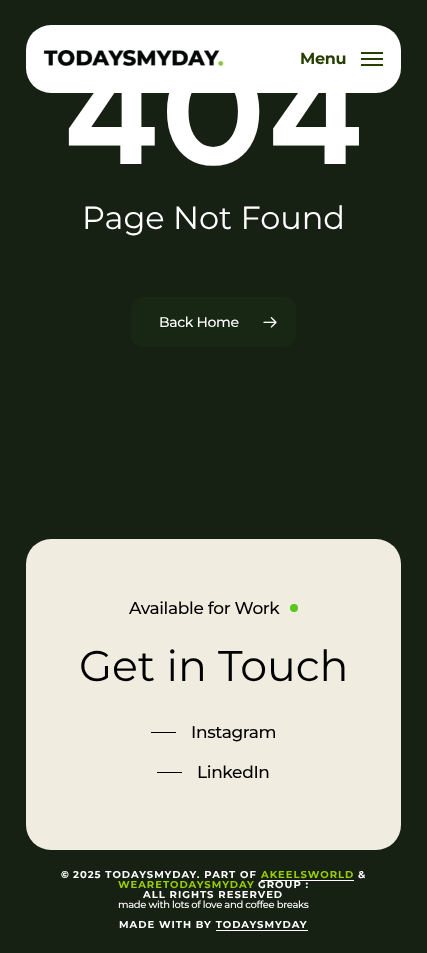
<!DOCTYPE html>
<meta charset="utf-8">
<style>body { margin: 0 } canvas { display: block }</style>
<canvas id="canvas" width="427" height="953"></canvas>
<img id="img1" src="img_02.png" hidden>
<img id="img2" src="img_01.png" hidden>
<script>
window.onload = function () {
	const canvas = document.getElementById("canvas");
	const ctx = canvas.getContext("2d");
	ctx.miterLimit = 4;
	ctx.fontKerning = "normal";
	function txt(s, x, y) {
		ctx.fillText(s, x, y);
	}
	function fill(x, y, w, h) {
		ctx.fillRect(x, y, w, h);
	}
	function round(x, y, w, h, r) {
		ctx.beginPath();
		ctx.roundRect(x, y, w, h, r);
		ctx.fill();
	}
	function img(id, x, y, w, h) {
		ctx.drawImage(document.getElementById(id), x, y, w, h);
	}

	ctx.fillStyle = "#162114";
	fill(0, 0, 427, 953);
	ctx.fillStyle = "#FFFFFF";
	round(26, 25, 375, 68, 25);
	ctx.fillStyle = "#273F01";
	fill(361, 52, 22, 2);
	fill(361, 64, 22, 2);
	fill(361, 58, 22, 2);
	ctx.fillStyle = "#172713";
	round(131, 297, 165, 50, 12);
	img("img1", 263, 317, 14, 11);
	ctx.fillStyle = "#F1ECE0";
	round(26, 539, 375, 311, 25);
	ctx.fillStyle = "#55C91C";
	ctx.beginPath();
	ctx.arc(294, 608, 4, 0, Math.PI * 2);
	ctx.fill();
	ctx.fillStyle = "#000000";
	fill(151, 732, 25, 1);
	fill(157, 772, 25, 1);
	ctx.fillStyle = "#FFFFFF";
	fill(261, 880, 93, 1);
	fill(216, 930, 92, 1);
	ctx.font = "800 150px DM Sans";
	txt("404", 62, 164);
	ctx.letterSpacing = "-0.35px";
	ctx.font = "bold 16px Montserrat";
	ctx.fillStyle = "#273F01";
	txt("Menu", 300, 64);
	img("img2", 43, 50, 181, 16);
	ctx.letterSpacing = "0px";
	ctx.font = "32px Montserrat";
	ctx.fillStyle = "#FFFFFF";
	txt("Page Not Found", 82, 229);
	ctx.letterSpacing = "-0.35px";
	ctx.font = "500 14px Montserrat";
	txt("Back Home", 159, 327);
	ctx.font = "500 17px Montserrat";
	ctx.fillStyle = "#000000";
	txt("Available for Work", 129, 614);
	ctx.letterSpacing = "0px";
	ctx.font = "42.75px Montserrat";
	txt("Get in Touch", 79, 681);
	ctx.letterSpacing = "-0.35px";
	ctx.font = "500 17px Montserrat";
	txt("Instagram", 191, 738);
	txt("LinkedIn", 197, 778);
	ctx.letterSpacing = "1px";
	ctx.font = "800 10px Montserrat";
	ctx.fillStyle = "#FFFFFF";
	txt("©", 61, 878);
	ctx.font = "bold 10px Montserrat";
	txt("2025 TODAYSMYDAY. PART OF", 73, 878);
	ctx.fillStyle = "#99CC00";
	txt("AKEELSWORLD", 261, 878);
	ctx.fillStyle = "#FFFFFF";
	txt("&", 358, 878);
	ctx.fillStyle = "#99CC00";
	txt("WEARETODAYSMYDAY", 118, 888);
	ctx.fillStyle = "#FFFFFF";
	txt("GROUP :", 258, 888);
	txt("ALL RIGHTS RESERVED", 143, 898);
	ctx.letterSpacing = "-0.35px";
	ctx.font = "500 10px Montserrat";
	txt("made with lots of love and coffee breaks", 118, 908);
	ctx.letterSpacing = "1px";
	ctx.font = "bold 10px Montserrat";
	txt("MADE WITH BY TODAYSMYDAY", 119, 928);
};
</script>
